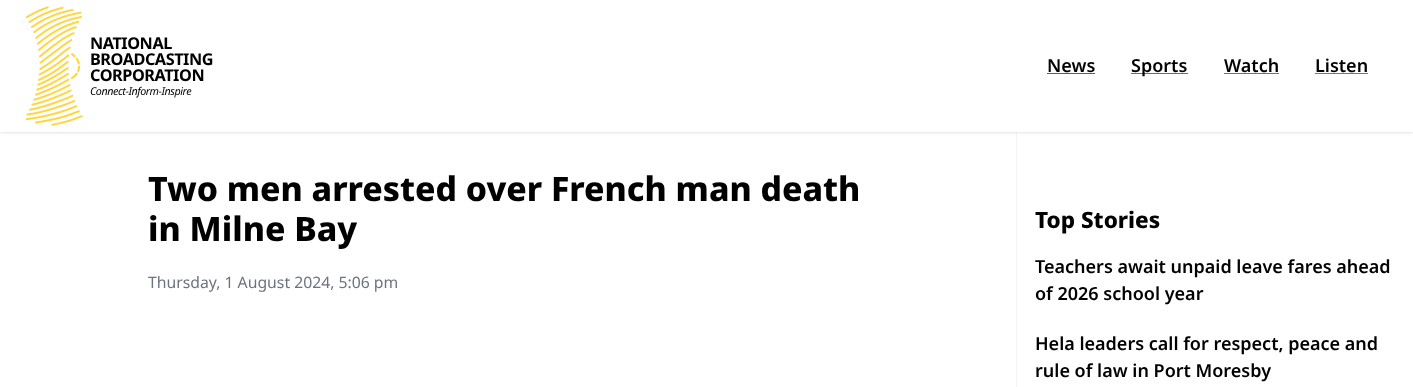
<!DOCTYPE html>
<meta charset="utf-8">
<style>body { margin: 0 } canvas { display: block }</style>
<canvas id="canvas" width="1413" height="387"></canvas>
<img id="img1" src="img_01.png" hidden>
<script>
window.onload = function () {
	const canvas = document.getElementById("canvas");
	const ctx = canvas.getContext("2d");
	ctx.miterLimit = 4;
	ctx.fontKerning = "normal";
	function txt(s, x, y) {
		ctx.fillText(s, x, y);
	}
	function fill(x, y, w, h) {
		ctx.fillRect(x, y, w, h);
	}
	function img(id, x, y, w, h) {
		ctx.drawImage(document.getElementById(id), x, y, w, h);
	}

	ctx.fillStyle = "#FFFFFF";
	fill(0, 0, 1413, 387);
	ctx.fillStyle = "#F4F5F6";
	fill(1016, 132, 1, 255);
	ctx.fillStyle = "rgba(209, 213, 219, 0.5)";
	ctx.filter = "blur(1px)";
	ctx.beginPath();
	ctx.rect(1, 2, 1411, 130);
	ctx.fill();
	ctx.filter = "none";
	ctx.filter = "blur(1.5px)";
	ctx.beginPath();
	ctx.rect(0, 1, 1413, 132);
	ctx.fill();
	ctx.filter = "none";
	ctx.fillStyle = "#FFFFFF";
	fill(0, 0, 1413, 132);
	img("img1", 25, 6, 58, 120);
	ctx.fillStyle = "#E12133";
	fill(1047, 73, 48, 1);
	ctx.fillStyle = "#1D9C42";
	fill(1131, 73, 57, 1);
	ctx.fillStyle = "#A740DD";
	fill(1224, 73, 55, 1);
	ctx.fillStyle = "#CE5B11";
	fill(1315, 73, 53, 1);
	ctx.letterSpacing = "-0.45px";
	ctx.font = "bold 16.25px Noto Sans";
	ctx.fillStyle = "#000000";
	txt("NATIONAL", 90, 49);
	txt("BROADCASTING", 90, 65);
	txt("CORPORATION", 90, 81);
	ctx.font = "italic 10.75px Noto Sans";
	txt("Connect-Inform-Inspire", 90, 95);
	ctx.letterSpacing = "0px";
	ctx.font = "600 18px Noto Sans";
	txt("News", 1047, 72);
	txt("Sports", 1131, 72);
	txt("Watch", 1224, 72);
	txt("Listen", 1315, 72);
	ctx.font = "800 33.75px Noto Sans";
	txt("Two men arrested over French man death", 148, 201);
	txt("in Milne Bay", 148, 241);
	ctx.font = "15.75px Noto Sans";
	ctx.fillStyle = "#6B7280";
	txt("Thursday, 1 August 2024, 5:06 pm", 148, 288);
	ctx.font = "800 22.5px Noto Sans";
	ctx.fillStyle = "#000000";
	txt("Top Stories", 1035, 228);
	ctx.font = "600 18px Noto Sans";
	txt("Teachers await unpaid leave fares ahead", 1035, 273);
	txt("of 2026 school year", 1035, 300);
	txt("Hela leaders call for respect, peace and", 1035, 350);
	txt("rule of law in Port Moresby", 1035, 377);
};
</script>
